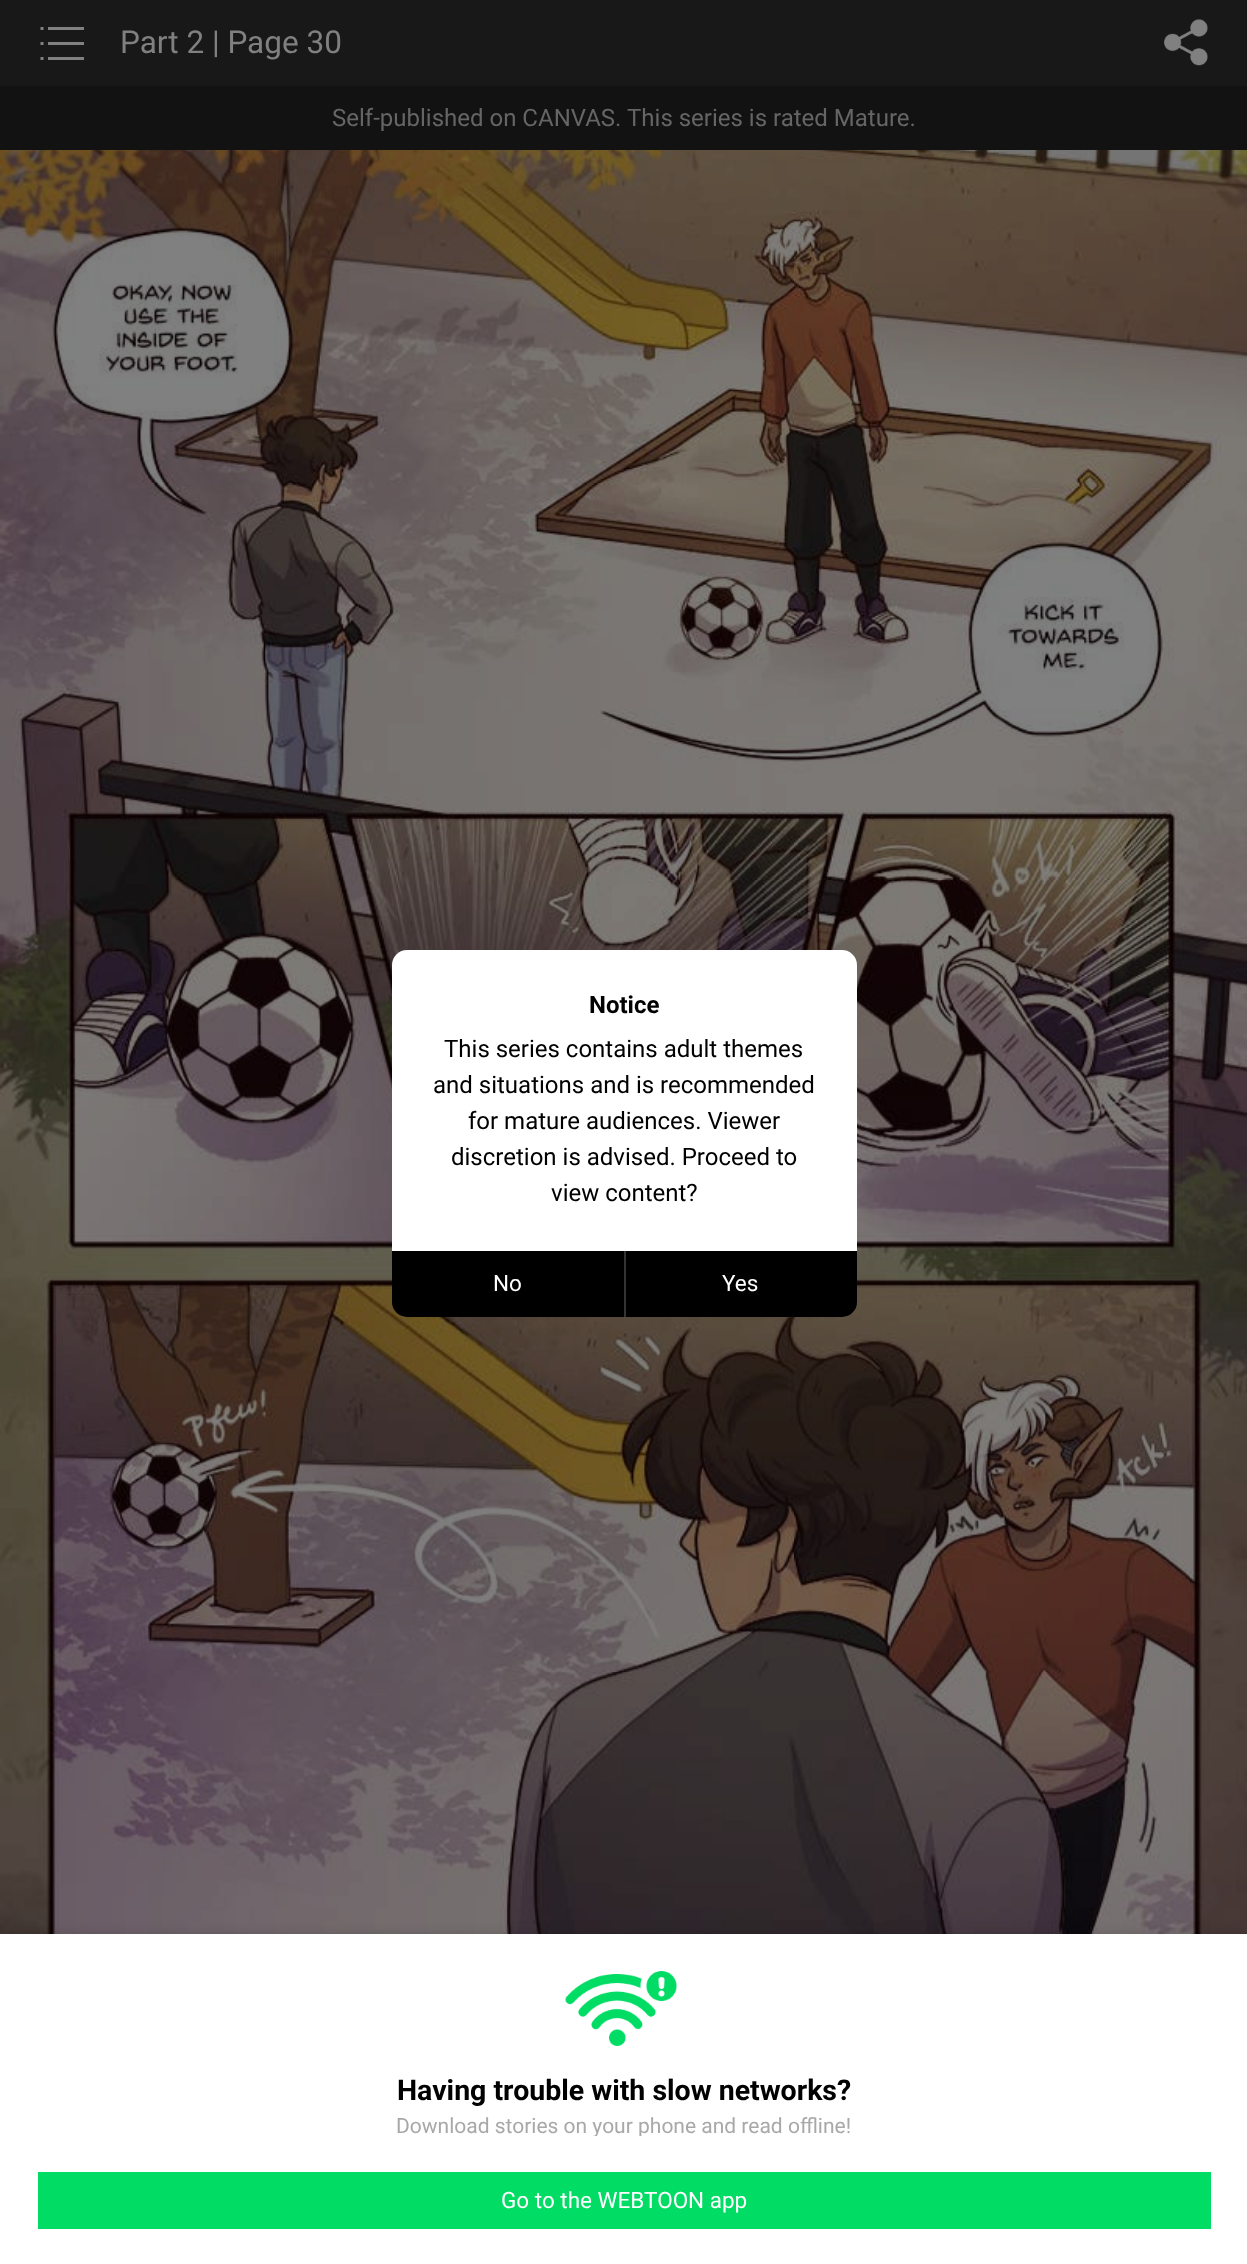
<!DOCTYPE html>
<meta charset="utf-8">
<style>body { margin: 0 } canvas { display: block }</style>
<canvas id="canvas" width="1247" height="2264"></canvas>
<img id="img1" src="img_01.png" hidden>
<img id="img2" src="img_02.png" hidden>
<img id="img3" src="img_03.png" hidden>
<img id="img4" src="img_04.png" hidden>
<script>
window.onload = function () {
	const canvas = document.getElementById("canvas");
	const ctx = canvas.getContext("2d");
	ctx.miterLimit = 4;
	ctx.fontKerning = "normal";
	function txt(s, x, y) {
		ctx.fillText(s, x, y);
	}
	function fill(x, y, w, h) {
		ctx.fillRect(x, y, w, h);
	}
	function img(id, x, y, w, h) {
		ctx.drawImage(document.getElementById(id), x, y, w, h);
	}

	ctx.fillStyle = "#FFFFFF";
	fill(0, 0, 1247, 2264);
	ctx.fillStyle = "#181818";
	fill(0, 0, 1247, 86);
	img("img1", 40, 27, 44, 33);
	img("img2", 1164, 19, 44, 47);
	ctx.fillStyle = "#121212";
	fill(0, 86, 1247, 64);
	img("img3", 0, 150, 1247, 1784);
	ctx.fillStyle = "#FFFFFF";
	ctx.beginPath();
	ctx.roundRect(392, 950, 465, 301, [15, 15, 0, 0]);
	ctx.fill();
	ctx.fillStyle = "#000000";
	ctx.beginPath();
	ctx.roundRect(392, 1251, 465, 66, [0, 0, 15, 15]);
	ctx.fill();
	ctx.fillStyle = "#333333";
	fill(624, 1251, 2, 66);
	ctx.fillStyle = "rgba(0, 0, 0, 0.2)";
	ctx.filter = "blur(7.5px)";
	ctx.beginPath();
	ctx.rect(0, 1937, 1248, 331);
	ctx.fill();
	ctx.filter = "none";
	ctx.fillStyle = "#FFFFFF";
	fill(0, 1934, 1247, 330);
	img("img4", 565, 1971, 112, 75);
	ctx.fillStyle = "#00DC64";
	fill(38, 2172, 1173, 57);
	ctx.font = "31.5px Roboto";
	ctx.fillStyle = "#808080";
	txt("Part 2 | Page 30", 120, 53);
	ctx.font = "24px Roboto";
	ctx.fillStyle = "#656565";
	txt("Self-published on CANVAS.", 332, 126);
	txt("This series is rated Mature.", 627, 126);
	ctx.font = "bold 24px Roboto";
	ctx.fillStyle = "#000000";
	txt("Notice", 589, 1013);
	ctx.font = "24px Roboto";
	txt("This series contains adult themes", 444, 1057);
	txt("and situations and is recommended", 433, 1093);
	txt("for mature audiences. Viewer", 468, 1129);
	txt("discretion is advised. Proceed to", 451, 1165);
	txt("view content?", 551, 1201);
	ctx.font = "22.5px Roboto";
	ctx.fillStyle = "#FFFFFF";
	txt("No", 493, 1291);
	txt("Yes", 722, 1291);
	ctx.font = "bold 28.5px Roboto";
	ctx.fillStyle = "#000000";
	txt("Having trouble with slow networks?", 397, 2100);
	ctx.save();
	ctx.beginPath();
	ctx.rect(38, 2115, 1173, 21);
	ctx.clip();
	ctx.font = "21px Roboto";
	ctx.fillStyle = "#A8A8A8";
	txt("Download stories on your phone and read offline!", 396, 2133);
	ctx.restore();
	ctx.font = "22.5px Roboto";
	ctx.fillStyle = "#FFFFFF";
	txt("Go to the WEBTOON app", 501, 2208);
};
</script>
